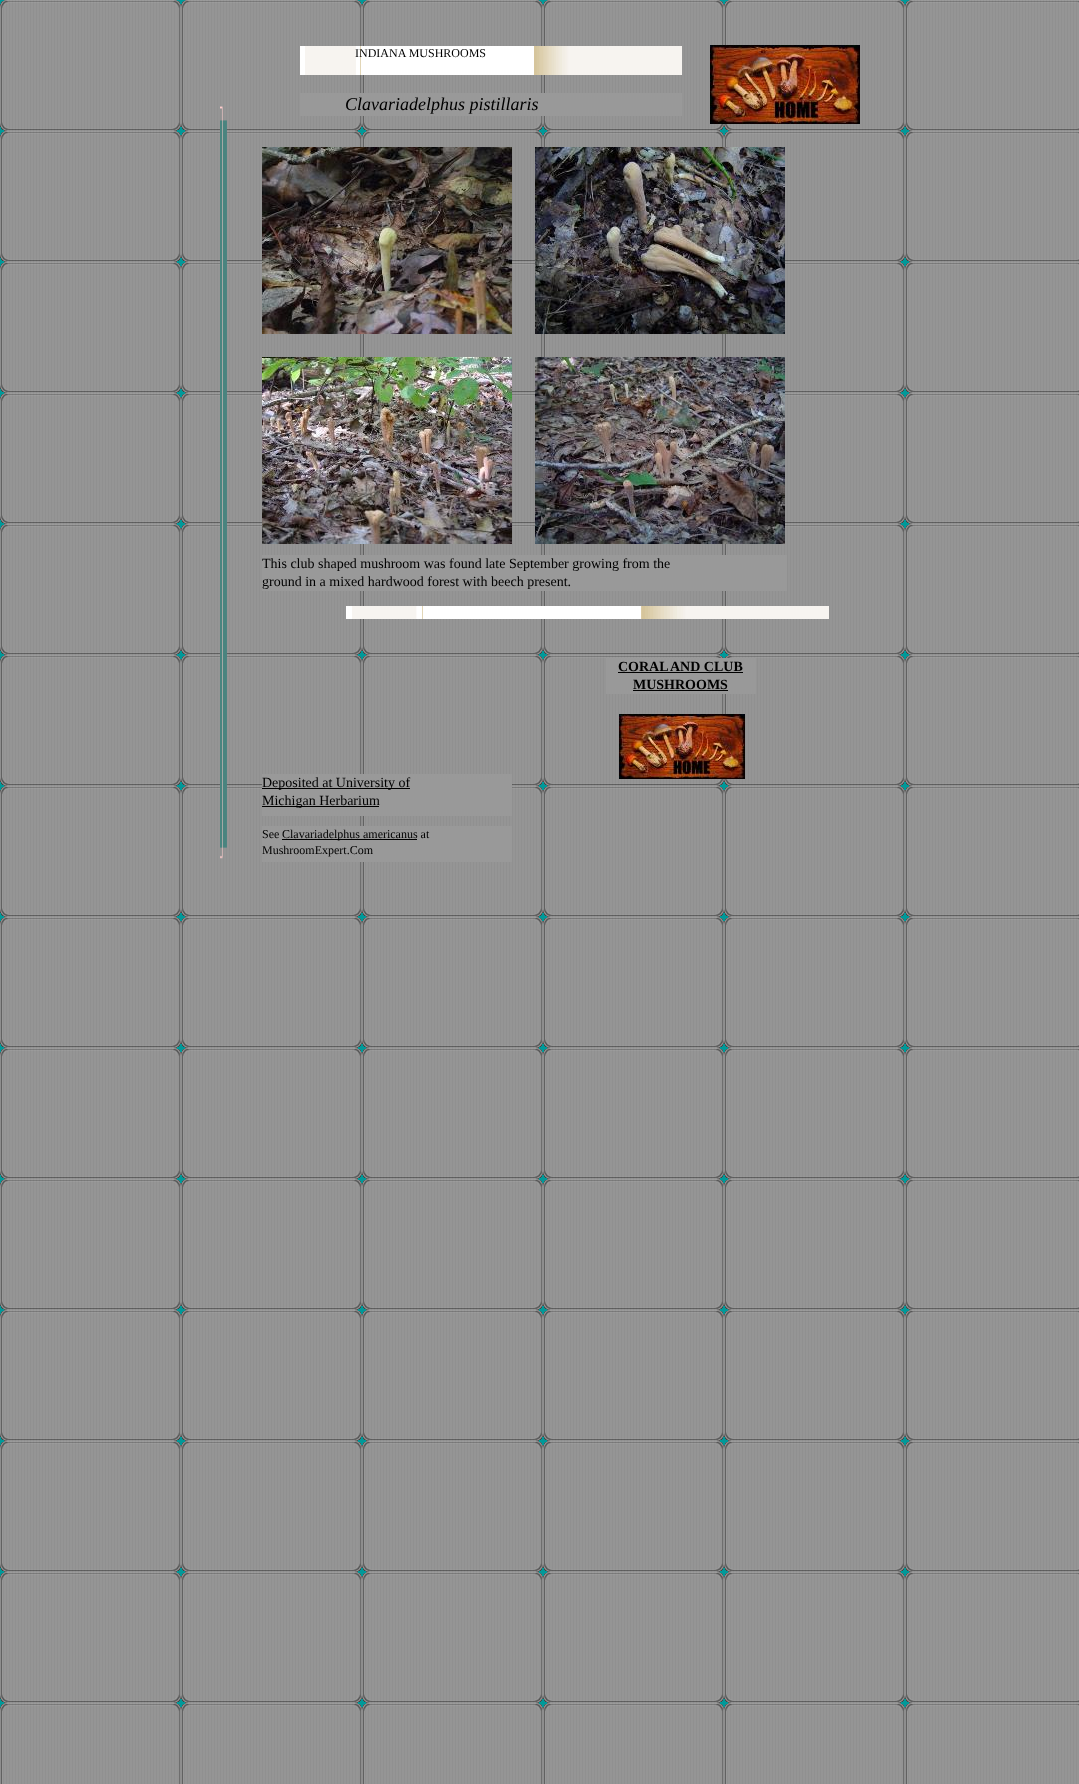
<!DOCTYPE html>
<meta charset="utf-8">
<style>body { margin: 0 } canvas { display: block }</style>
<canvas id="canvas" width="1079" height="1784"></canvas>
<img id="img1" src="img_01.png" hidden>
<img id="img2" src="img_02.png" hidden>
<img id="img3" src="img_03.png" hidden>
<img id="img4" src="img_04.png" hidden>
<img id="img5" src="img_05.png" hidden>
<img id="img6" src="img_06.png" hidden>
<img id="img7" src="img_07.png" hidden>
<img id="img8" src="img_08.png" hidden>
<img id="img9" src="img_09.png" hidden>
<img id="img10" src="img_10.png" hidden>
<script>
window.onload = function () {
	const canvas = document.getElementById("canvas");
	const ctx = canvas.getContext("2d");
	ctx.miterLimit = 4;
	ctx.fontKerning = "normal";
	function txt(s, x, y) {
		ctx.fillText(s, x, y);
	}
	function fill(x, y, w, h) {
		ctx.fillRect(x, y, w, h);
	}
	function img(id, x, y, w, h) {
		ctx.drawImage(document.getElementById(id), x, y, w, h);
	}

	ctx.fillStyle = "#009999";
	fill(0, 0, 1079, 1784);
	img("img1", 0, 0, 1079, 1784);
	img("img2", 300, 46, 382, 29);
	img("img3", 710, 45, 150, 79);
	img("img4", 220, 106, 7, 753);
	ctx.fillStyle = "#999999";
	fill(300, 93, 382, 23);
	img("img5", 262, 147, 250, 187);
	img("img6", 535, 147, 250, 187);
	img("img7", 262, 357, 250, 187);
	img("img8", 535, 357, 250, 187);
	fill(262, 555, 525, 36);
	img("img9", 346, 606, 483, 13);
	fill(606, 658, 150, 36);
	ctx.fillStyle = "#000000";
	fill(618, 672, 125, 1);
	fill(633, 690, 95, 1);
	img("img10", 619, 714, 126, 65);
	ctx.fillStyle = "#999999";
	fill(262, 774, 250, 42);
	ctx.fillStyle = "#000000";
	fill(262, 788, 148, 1);
	fill(262, 806, 117, 1);
	ctx.fillStyle = "#999999";
	fill(262, 826, 250, 36);
	ctx.fillStyle = "#000000";
	fill(282, 839, 135, 1);
	ctx.font = "12px Liberation Serif";
	txt("INDIANA MUSHROOMS", 355, 57);
	ctx.font = "italic 18px Liberation Serif";
	txt("Clavariadelphus pistillaris", 345, 110);
	ctx.font = "14px Liberation Serif";
	txt("This club shaped mushroom was found late September growing from the", 262, 568);
	txt("ground in a mixed hardwood forest with beech present.", 262, 586);
	ctx.font = "bold 14px Liberation Serif";
	txt("CORAL", 618, 671);
	txt("AND CLUB", 670, 671);
	txt("MUSHROOMS", 633, 689);
	ctx.font = "14px Liberation Serif";
	txt("Deposited at University of", 262, 787);
	txt("Michigan Herbarium", 262, 805);
	ctx.font = "12px Liberation Serif";
	txt("See", 262, 838);
	txt("Clavariadelphus americanus at", 282, 838);
	txt("MushroomExpert.Com", 262, 854);
};
</script>
